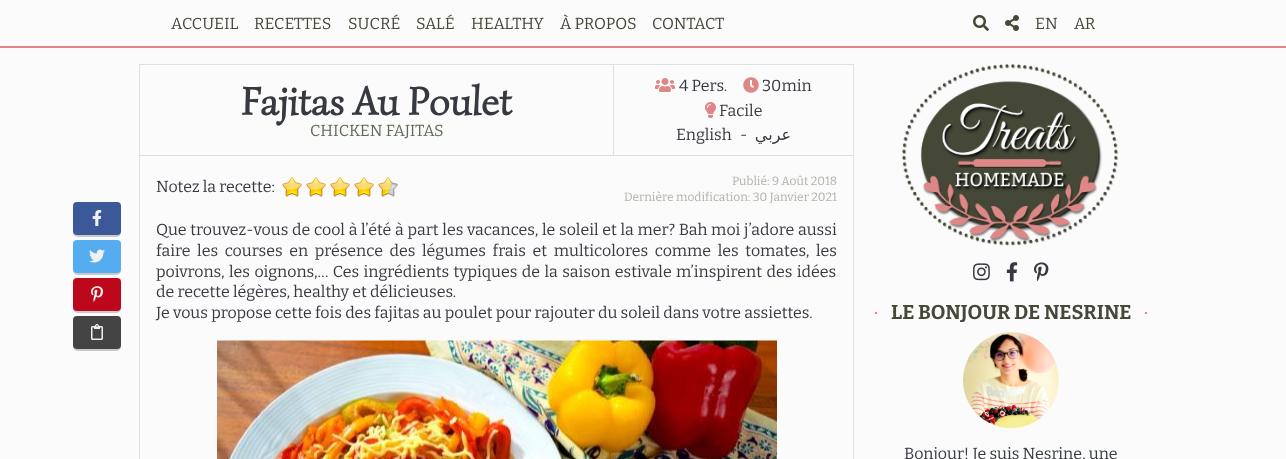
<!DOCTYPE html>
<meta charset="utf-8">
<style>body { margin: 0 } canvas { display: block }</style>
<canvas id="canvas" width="1286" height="459"></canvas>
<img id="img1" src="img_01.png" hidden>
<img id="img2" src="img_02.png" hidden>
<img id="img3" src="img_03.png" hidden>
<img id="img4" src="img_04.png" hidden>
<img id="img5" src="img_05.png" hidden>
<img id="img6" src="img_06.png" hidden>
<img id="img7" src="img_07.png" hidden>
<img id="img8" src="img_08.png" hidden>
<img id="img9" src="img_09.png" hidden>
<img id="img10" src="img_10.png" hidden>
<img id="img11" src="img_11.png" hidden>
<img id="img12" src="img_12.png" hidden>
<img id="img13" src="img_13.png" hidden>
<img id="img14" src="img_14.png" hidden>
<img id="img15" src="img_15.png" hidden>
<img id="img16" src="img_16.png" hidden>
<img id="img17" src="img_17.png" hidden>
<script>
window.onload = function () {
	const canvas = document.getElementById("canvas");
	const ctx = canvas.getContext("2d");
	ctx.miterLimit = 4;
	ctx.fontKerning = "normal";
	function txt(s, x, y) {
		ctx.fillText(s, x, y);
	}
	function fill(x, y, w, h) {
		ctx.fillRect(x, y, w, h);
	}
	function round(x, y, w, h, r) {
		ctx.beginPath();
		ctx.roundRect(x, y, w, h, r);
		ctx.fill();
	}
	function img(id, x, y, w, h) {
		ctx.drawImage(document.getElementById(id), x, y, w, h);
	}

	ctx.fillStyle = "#FBFBFB";
	fill(0, 0, 1286, 459);
	ctx.fillStyle = "#DE8787";
	fill(0, 46, 1286, 2);
	img("img1", 973, 15, 16, 16);
	img("img2", 1005, 15, 14, 16);
	ctx.fillStyle = "#C9C9C9";
	ctx.beginPath();
	ctx.moveTo(73, 231);
	ctx.bezierCurveTo(73, 238, 77, 237, 84, 237);
	ctx.lineTo(110, 237);
	ctx.bezierCurveTo(117, 237, 121, 238, 121, 231);
	ctx.bezierCurveTo(121, 233, 119, 235, 117, 235);
	ctx.lineTo(77, 235);
	ctx.bezierCurveTo(75, 235, 73, 233, 73, 231);
	ctx.closePath();
	ctx.fill();
	ctx.fillStyle = "#3B5998";
	round(73, 202, 48, 33, 4);
	img("img3", 92, 210, 10, 16);
	ctx.fillStyle = "#C9C9C9";
	ctx.beginPath();
	ctx.moveTo(73, 269);
	ctx.bezierCurveTo(73, 276, 77, 275, 84, 275);
	ctx.lineTo(110, 275);
	ctx.bezierCurveTo(117, 275, 121, 276, 121, 269);
	ctx.bezierCurveTo(121, 271, 119, 273, 117, 273);
	ctx.lineTo(77, 273);
	ctx.bezierCurveTo(75, 273, 73, 271, 73, 269);
	ctx.closePath();
	ctx.fill();
	ctx.fillStyle = "#55ACEE";
	round(73, 240, 48, 33, 4);
	img("img4", 89, 249, 16, 14);
	ctx.fillStyle = "#C9C9C9";
	ctx.beginPath();
	ctx.moveTo(73, 307);
	ctx.bezierCurveTo(73, 314, 77, 313, 84, 313);
	ctx.lineTo(110, 313);
	ctx.bezierCurveTo(117, 313, 121, 314, 121, 307);
	ctx.bezierCurveTo(121, 309, 119, 311, 117, 311);
	ctx.lineTo(77, 311);
	ctx.bezierCurveTo(75, 311, 73, 309, 73, 307);
	ctx.closePath();
	ctx.fill();
	ctx.fillStyle = "#BD081C";
	round(73, 278, 48, 33, 4);
	img("img5", 91, 286, 12, 16);
	ctx.fillStyle = "#C9C9C9";
	ctx.beginPath();
	ctx.moveTo(73, 345);
	ctx.bezierCurveTo(73, 352, 77, 351, 84, 351);
	ctx.lineTo(110, 351);
	ctx.bezierCurveTo(117, 351, 121, 352, 121, 345);
	ctx.bezierCurveTo(121, 347, 119, 349, 117, 349);
	ctx.lineTo(77, 349);
	ctx.bezierCurveTo(75, 349, 73, 347, 73, 345);
	ctx.closePath();
	ctx.fill();
	ctx.fillStyle = "#444444";
	round(73, 316, 48, 33, 4);
	img("img6", 91, 324, 12, 16);
	ctx.strokeStyle = "#E0E0E0";
	ctx.strokeRect(139.5, 64.5, 714, 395);
	ctx.fillStyle = "#E0E0E0";
	fill(140, 155, 713, 1);
	fill(613, 65, 1, 90);
	img("img7", 655, 78, 20, 14);
	img("img8", 743, 77, 16, 16);
	img("img9", 705, 102, 11, 16);
	img("img10", 282, 177, 20, 20);
	img("img10", 306, 177, 20, 20);
	img("img10", 330, 177, 20, 20);
	img("img10", 354, 177, 20, 20);
	img("img11", 378, 177, 20, 20);
	img("img12", 217, 340, 560, 119);
	img("img13", 902, 64, 217, 182);
	img("img14", 973, 263, 17, 18);
	img("img15", 1006, 262, 12, 20);
	img("img16", 1034, 262, 15, 20);
	ctx.fillStyle = "#DE8787";
	fill(875, 312, 2, 2);
	fill(1145, 312, 2, 2);
	img("img17", 963, 332, 96, 96);
	ctx.font = "16px Bitter";
	ctx.fillStyle = "#454837";
	txt("ACCUEIL", 171, 29);
	txt("RECETTES", 254, 29);
	txt("SUCRÉ", 348, 29);
	txt("SALÉ", 416, 29);
	txt("HEALTHY", 471, 29);
	txt("À PROPOS", 560, 29);
	txt("CONTACT", 652, 29);
	txt("EN", 1035, 29);
	txt("AR", 1074, 29);
	ctx.font = "bold 40px Simonetta";
	ctx.fillStyle = "#363940";
	txt("Fajitas Au Poulet", 241, 115);
	ctx.font = "16px Bitter";
	ctx.fillStyle = "#5D6C53";
	txt("CHICKEN FAJITAS", 310, 136);
	ctx.fillStyle = "#363940";
	txt("4 Pers.", 679, 91);
	txt("30min", 762, 91);
	txt("Facile", 719, 116);
	txt("English", 676, 140);
	txt("-", 740, 140);
	ctx.direction = "rtl";
	ctx.font = "16px DejaVu Sans";
	txt("عربي", 791, 140);
	ctx.direction = "ltr";
	ctx.font = "16px Bitter";
	txt("Notez la recette:", 156, 192);
	ctx.font = "12px Bitter";
	ctx.fillStyle = "#ACB4A7";
	txt("Publié: 9 Août 2018", 732, 185);
	txt("Dernière modification: 30 Janvier 2021", 624, 201);
	ctx.wordSpacing = "0.5px";
	ctx.font = "16px Bitter";
	ctx.fillStyle = "#363940";
	txt("Que trouvez-vous de cool à l’été à part les vacances, le soleil et la mer? Bah moi j’adore aussi", 156, 235);
	ctx.wordSpacing = "3.4px";
	txt("faire les courses en présence des légumes frais et multicolores comme les tomates, les", 156, 256);
	ctx.wordSpacing = "1.25px";
	txt("poivrons, les oignons,… Ces ingrédients typiques de la saison estivale m’inspirent des idées", 156, 277);
	ctx.wordSpacing = "0px";
	txt("de recette légères, healthy et délicieuses.", 156, 297);
	txt("Je vous propose cette fois des fajitas au poulet pour rajouter du soleil dans votre assiettes.", 156, 318);
	ctx.save();
	ctx.beginPath();
	ctx.rect(875, 302, 272, 20);
	ctx.clip();
	ctx.font = "bold 20px Bitter";
	ctx.fillStyle = "#454837";
	txt("LE BONJOUR DE NESRINE", 891, 319);
	ctx.restore();
	txt("Bonjour! Je suis Nesrine, une", 904, 459);
};
</script>
